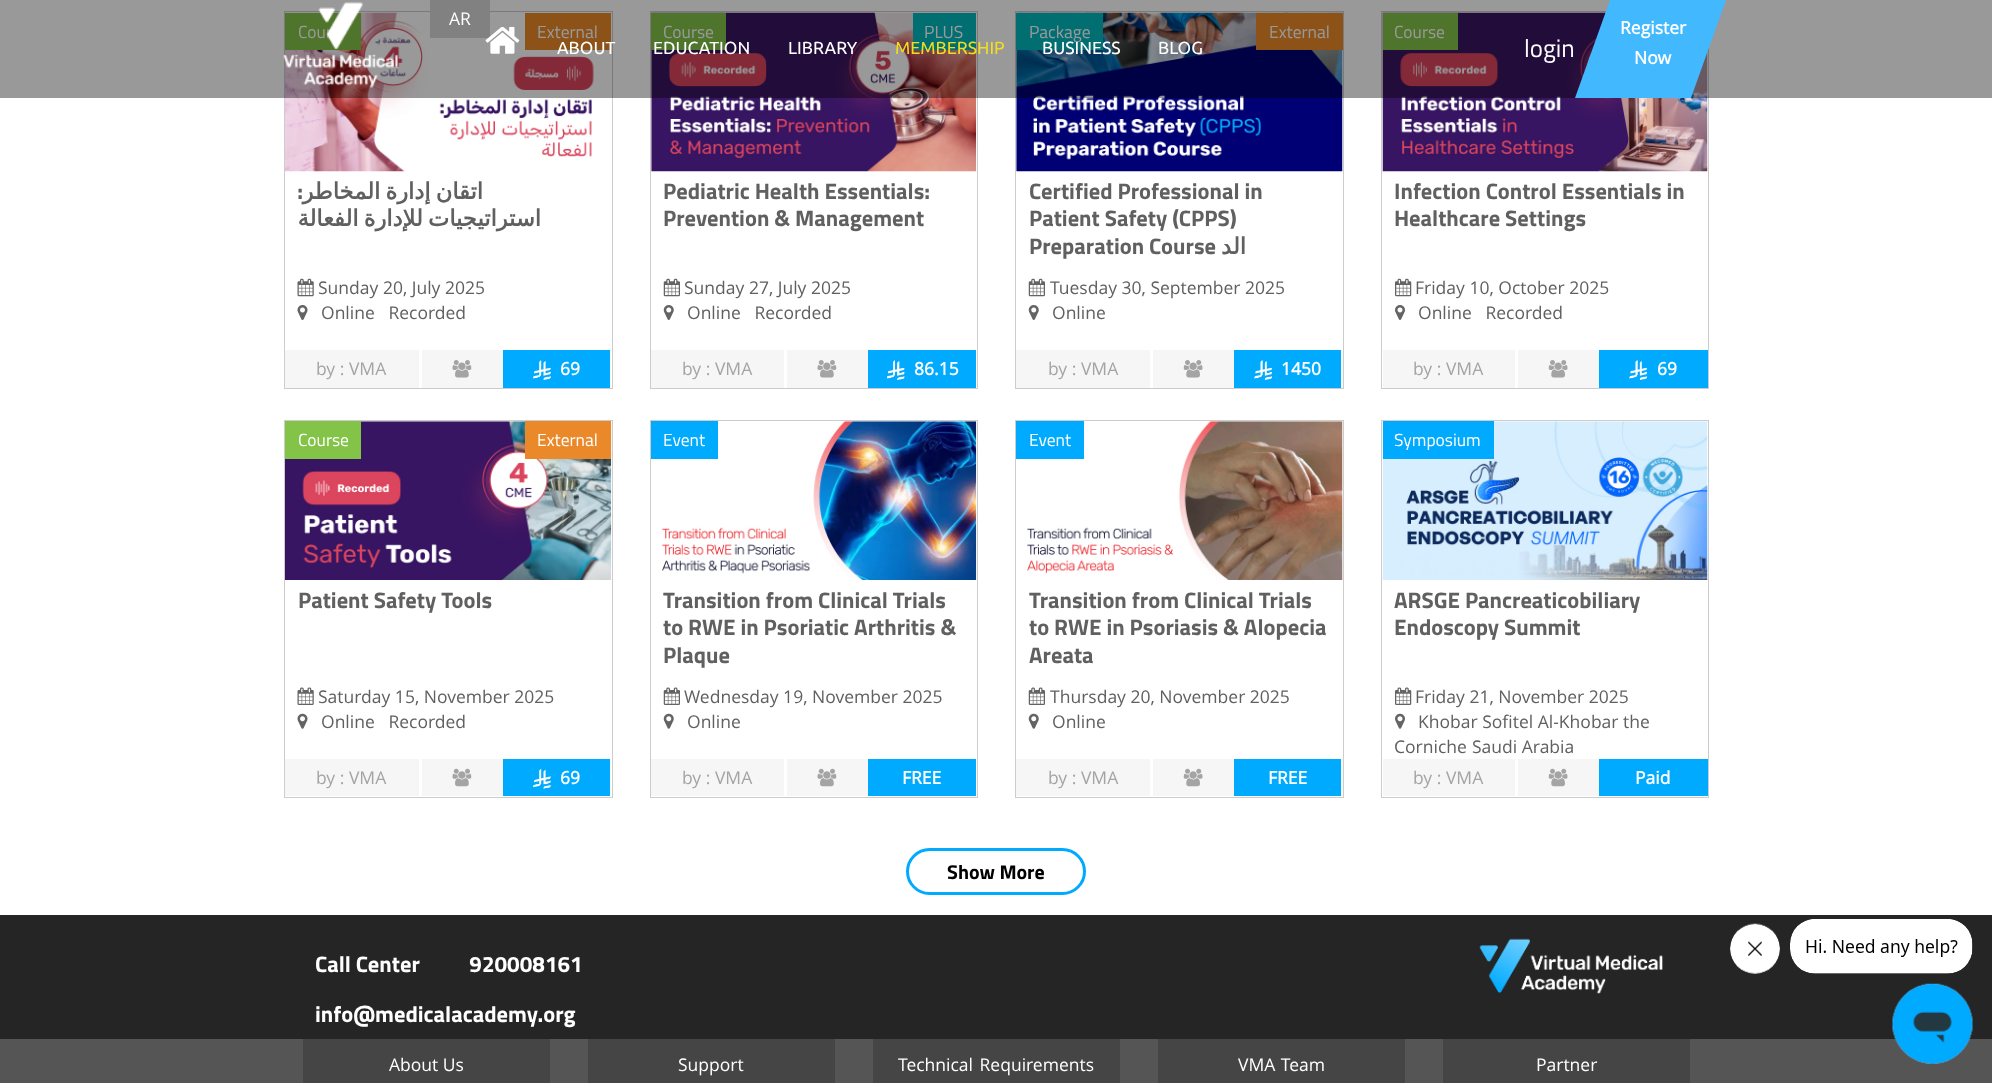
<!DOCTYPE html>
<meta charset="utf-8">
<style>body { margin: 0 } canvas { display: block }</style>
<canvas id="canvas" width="1992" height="1083"></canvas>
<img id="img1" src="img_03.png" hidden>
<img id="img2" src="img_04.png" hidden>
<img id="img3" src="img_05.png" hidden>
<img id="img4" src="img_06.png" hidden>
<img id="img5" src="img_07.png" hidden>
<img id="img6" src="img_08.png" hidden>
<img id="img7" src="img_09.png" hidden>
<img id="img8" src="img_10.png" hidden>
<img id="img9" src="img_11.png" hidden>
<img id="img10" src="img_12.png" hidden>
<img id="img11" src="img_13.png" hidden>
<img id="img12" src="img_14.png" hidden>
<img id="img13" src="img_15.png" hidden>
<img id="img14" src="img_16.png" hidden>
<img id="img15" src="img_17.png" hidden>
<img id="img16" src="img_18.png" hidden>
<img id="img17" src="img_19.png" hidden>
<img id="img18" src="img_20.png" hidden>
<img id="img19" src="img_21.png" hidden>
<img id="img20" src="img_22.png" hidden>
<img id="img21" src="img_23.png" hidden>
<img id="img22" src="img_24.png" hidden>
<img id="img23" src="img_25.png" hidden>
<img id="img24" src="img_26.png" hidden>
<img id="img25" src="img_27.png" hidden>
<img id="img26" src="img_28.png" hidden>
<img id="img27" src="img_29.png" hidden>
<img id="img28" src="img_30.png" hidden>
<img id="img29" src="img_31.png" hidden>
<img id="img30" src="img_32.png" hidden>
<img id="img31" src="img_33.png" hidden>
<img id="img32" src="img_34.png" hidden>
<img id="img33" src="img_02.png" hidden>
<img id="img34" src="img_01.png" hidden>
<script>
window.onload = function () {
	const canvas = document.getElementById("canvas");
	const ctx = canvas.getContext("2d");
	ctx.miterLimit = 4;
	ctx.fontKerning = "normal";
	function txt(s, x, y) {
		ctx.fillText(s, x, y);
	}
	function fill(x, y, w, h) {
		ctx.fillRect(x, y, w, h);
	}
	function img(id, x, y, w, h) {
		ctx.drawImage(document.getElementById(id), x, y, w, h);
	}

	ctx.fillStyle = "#FFFFFF";
	fill(0, 0, 1992, 1083);
	ctx.strokeStyle = "#CCCCCC";
	ctx.strokeRect(284.5, 11.5, 328, 377);
	img("img1", 285, 12, 309, 160);
	ctx.fillStyle = "#83C348";
	fill(285, 13, 76, 37);
	ctx.fillStyle = "#EA8929";
	fill(525, 13, 86, 37);
	img("img2", 297, 278, 17, 19);
	img("img3", 297, 305, 11, 15);
	ctx.fillStyle = "#F6F6F6";
	fill(285, 350, 326, 38);
	ctx.fillStyle = "#FFFFFF";
	fill(419, 350, 3, 38);
	img("img4", 452, 360, 20, 18);
	ctx.fillStyle = "#00AAFF";
	fill(503, 350, 107, 38);
	img("img5", 532, 360, 19, 20);
	ctx.strokeRect(650.5, 11.5, 327, 377);
	img("img6", 651, 12, 326, 160);
	ctx.fillStyle = "#83C348";
	fill(651, 13, 75, 37);
	ctx.fillStyle = "#02B9BF";
	fill(913, 13, 63, 37);
	img("img7", 663, 278, 17, 19);
	img("img8", 663, 305, 11, 15);
	ctx.fillStyle = "#F6F6F6";
	fill(651, 350, 217, 38);
	ctx.fillStyle = "#FFFFFF";
	fill(784, 350, 3, 38);
	img("img4", 817, 360, 20, 18);
	ctx.fillStyle = "#00AAFF";
	fill(868, 350, 108, 38);
	img("img9", 886, 360, 19, 20);
	ctx.strokeRect(1015.5, 11.5, 328, 377);
	img("img10", 1016, 12, 327, 160);
	ctx.fillStyle = "#02B9BF";
	fill(1016, 13, 87, 37);
	ctx.fillStyle = "#EA8929";
	fill(1256, 13, 87, 37);
	img("img7", 1028, 278, 17, 19);
	img("img8", 1028, 305, 11, 15);
	ctx.fillStyle = "#F6F6F6";
	fill(1016, 350, 327, 38);
	ctx.fillStyle = "#FFFFFF";
	fill(1150, 350, 3, 38);
	img("img11", 1183, 360, 20, 18);
	ctx.fillStyle = "#00AAFF";
	fill(1234, 350, 107, 38);
	img("img12", 1254, 360, 19, 20);
	ctx.strokeRect(1381.5, 11.5, 327, 377);
	img("img13", 1382, 12, 326, 160);
	ctx.fillStyle = "#83C348";
	fill(1383, 13, 75, 37);
	img("img14", 1395, 278, 17, 19);
	img("img15", 1395, 305, 10, 15);
	ctx.fillStyle = "#F6F6F6";
	fill(1383, 350, 216, 38);
	ctx.fillStyle = "#FFFFFF";
	fill(1515, 350, 3, 38);
	img("img11", 1548, 360, 20, 18);
	ctx.fillStyle = "#00AAFF";
	fill(1599, 350, 109, 38);
	img("img12", 1629, 360, 19, 20);
	ctx.strokeRect(284.5, 420.5, 328, 377);
	img("img16", 285, 421, 327, 159);
	ctx.fillStyle = "#83C348";
	fill(285, 421, 76, 38);
	ctx.fillStyle = "#EA8929";
	fill(525, 421, 86, 38);
	img("img17", 297, 687, 17, 18);
	img("img18", 297, 713, 11, 16);
	ctx.fillStyle = "#F6F6F6";
	fill(285, 759, 326, 37);
	ctx.fillStyle = "#FFFFFF";
	fill(419, 759, 3, 37);
	img("img19", 452, 768, 20, 19);
	ctx.fillStyle = "#00AAFF";
	fill(503, 759, 107, 37);
	img("img20", 532, 768, 19, 21);
	ctx.strokeRect(650.5, 420.5, 327, 377);
	img("img21", 662, 421, 315, 159);
	fill(651, 421, 67, 38);
	img("img22", 663, 687, 17, 18);
	img("img23", 663, 713, 11, 16);
	ctx.fillStyle = "#F6F6F6";
	fill(651, 759, 217, 37);
	ctx.fillStyle = "#FFFFFF";
	fill(784, 759, 3, 37);
	img("img19", 817, 768, 20, 19);
	ctx.fillStyle = "#00AAFF";
	fill(868, 759, 108, 37);
	ctx.strokeRect(1015.5, 420.5, 328, 377);
	img("img24", 1027, 421, 316, 159);
	fill(1016, 421, 68, 38);
	img("img22", 1028, 687, 17, 18);
	img("img23", 1028, 713, 11, 16);
	ctx.fillStyle = "#F6F6F6";
	fill(1016, 759, 327, 37);
	ctx.fillStyle = "#FFFFFF";
	fill(1150, 759, 3, 37);
	img("img25", 1183, 768, 20, 19);
	ctx.fillStyle = "#00AAFF";
	fill(1234, 759, 107, 37);
	ctx.strokeRect(1381.5, 420.5, 327, 377);
	img("img26", 1382, 421, 326, 159);
	fill(1383, 421, 111, 38);
	img("img27", 1395, 687, 17, 18);
	img("img28", 1395, 713, 10, 16);
	ctx.fillStyle = "#F6F6F6";
	fill(1383, 759, 216, 37);
	ctx.fillStyle = "#FFFFFF";
	fill(1515, 759, 3, 37);
	img("img25", 1548, 768, 20, 19);
	ctx.fillStyle = "#00AAFF";
	fill(1599, 759, 109, 37);
	ctx.beginPath();
	ctx.roundRect(907.5, 849.5, 177, 44, 22);
	ctx.strokeStyle = "#00AAFF";
	ctx.lineWidth = 3;
	ctx.stroke();
	ctx.fillStyle = "#252525";
	fill(0, 915, 1992, 124);
	img("img29", 1479, 938, 184, 56);
	img("img30", 1730, 923, 50, 51);
	img("img31", 1790, 919, 183, 55);
	ctx.fillStyle = "#555555";
	fill(0, 1039, 1992, 44);
	img("img32", 1892, 983, 81, 81);
	ctx.fillStyle = "#454545";
	fill(303, 1039, 247, 44);
	fill(588, 1039, 247, 44);
	fill(873, 1039, 247, 44);
	fill(1158, 1039, 247, 44);
	fill(1443, 1039, 247, 44);
	ctx.font = "17.5px Titillium Web";
	ctx.fillStyle = "#FFFFFF";
	txt("Cour", 298, 38);
	txt("External", 537, 38);
	ctx.direction = "rtl";
	ctx.font = "bold 22.5px Titillium Web";
	ctx.fillStyle = "#606060";
	txt(":", 303, 199);
	ctx.wordSpacing = "-2px";
	ctx.font = "bold 22.5px DejaVu Sans";
	txt("اتقان إدارة المخاطر", 483, 199);
	txt("استراتيجيات للإدارة الفعالة", 541, 226);
	ctx.wordSpacing = "0px";
	ctx.direction = "ltr";
	ctx.font = "17.5px Open Sans";
	txt("Sunday 20, July 2025", 318, 294);
	txt("Online   Recorded", 321, 319);
	ctx.fillStyle = "#A4A4A4";
	txt("by : VMA", 316, 375);
	ctx.font = "bold 17.5px Open Sans";
	ctx.fillStyle = "#FFFFFF";
	txt("69", 560, 375);
	ctx.font = "17.5px Titillium Web";
	txt("Course", 663, 38);
	txt("PLUS", 924, 38);
	ctx.font = "bold 22.5px Titillium Web";
	ctx.fillStyle = "#606060";
	txt("Pediatric Health Essentials:", 663, 199);
	txt("Prevention & Management", 663, 226);
	ctx.font = "17.5px Open Sans";
	txt("Sunday 27, July 2025", 684, 294);
	txt("Online   Recorded", 687, 319);
	ctx.fillStyle = "#A4A4A4";
	txt("by : VMA", 682, 375);
	ctx.font = "bold 17.5px Open Sans";
	ctx.fillStyle = "#FFFFFF";
	txt("86.15", 914, 375);
	ctx.font = "17.5px Titillium Web";
	txt("Package", 1029, 38);
	txt("External", 1269, 38);
	ctx.font = "bold 22.5px Titillium Web";
	ctx.fillStyle = "#606060";
	txt("Certified Professional in", 1029, 199);
	txt("Patient Safety (CPPS)", 1029, 226);
	txt("Preparation Course", 1029, 254);
	ctx.direction = "rtl";
	ctx.font = "bold 22.5px DejaVu Sans";
	txt("الد", 1246, 254);
	ctx.direction = "ltr";
	ctx.font = "17.5px Open Sans";
	txt("Tuesday 30, September 2025", 1050, 294);
	txt("Online", 1052, 319);
	ctx.fillStyle = "#A4A4A4";
	txt("by : VMA", 1048, 375);
	ctx.font = "bold 17.5px Open Sans";
	ctx.fillStyle = "#FFFFFF";
	txt("1450", 1281, 375);
	ctx.font = "17.5px Titillium Web";
	txt("Course", 1394, 38);
	ctx.fillStyle = "rgba(0, 0, 0, 0.4)";
	fill(0, 0, 1992, 98);
	ctx.fillStyle = "#42B8FF";
	ctx.beginPath();
	ctx.moveTo(1610, 0);
	ctx.lineTo(1726, 0);
	ctx.lineTo(1691, 98);
	ctx.lineTo(1575, 98);
	ctx.closePath();
	ctx.fill();
	ctx.font = "bold 17.5px Open Sans";
	ctx.fillStyle = "#FFFFFF";
	txt("Now", 1634, 64);
	txt("Register", 1620, 34);
	ctx.font = "17.5px Ubuntu";
	txt("BLOG", 1158, 54);
	txt("BUSINESS", 1042, 54);
	ctx.fillStyle = "#F2DC21";
	txt("MEMBERSHIP", 895, 54);
	ctx.fillStyle = "#FFFFFF";
	txt("LIBRARY", 788, 54);
	txt("EDUCATION", 653, 54);
	txt("ABOUT", 557, 54);
	ctx.fillStyle = "#818181";
	fill(430, 0, 60, 38);
	img("img33", 485, 26, 35, 28);
	ctx.font = "17.5px Open Sans";
	ctx.fillStyle = "#FFFFFF";
	txt("AR", 449, 25);
	ctx.font = "25px Titillium Web";
	txt("login", 1524, 57);
	img("img34", 283, 2, 115, 86);
	ctx.font = "bold 22.5px Titillium Web";
	ctx.fillStyle = "#606060";
	txt("Infection Control Essentials in", 1394, 199);
	txt("Healthcare Settings", 1394, 226);
	ctx.font = "17.5px Open Sans";
	txt("Friday 10, October 2025", 1415, 294);
	txt("Online   Recorded", 1418, 319);
	ctx.fillStyle = "#A4A4A4";
	txt("by : VMA", 1413, 375);
	ctx.font = "bold 17.5px Open Sans";
	ctx.fillStyle = "#FFFFFF";
	txt("69", 1657, 375);
	ctx.font = "17.5px Titillium Web";
	txt("Course", 298, 446);
	txt("External", 537, 446);
	ctx.font = "bold 22.5px Titillium Web";
	ctx.fillStyle = "#606060";
	txt("Patient Safety Tools", 298, 608);
	ctx.font = "17.5px Open Sans";
	txt("Saturday 15, November 2025", 318, 703);
	txt("Online   Recorded", 321, 728);
	ctx.fillStyle = "#A4A4A4";
	txt("by : VMA", 316, 784);
	ctx.font = "bold 17.5px Open Sans";
	ctx.fillStyle = "#FFFFFF";
	txt("69", 560, 784);
	ctx.font = "17.5px Titillium Web";
	txt("Event", 663, 446);
	ctx.font = "bold 22.5px Titillium Web";
	ctx.fillStyle = "#606060";
	txt("Transition from Clinical Trials", 663, 608);
	txt("to RWE in Psoriatic Arthritis &", 663, 635);
	txt("Plaque", 663, 663);
	ctx.font = "17.5px Open Sans";
	txt("Wednesday 19, November 2025", 684, 703);
	txt("Online", 687, 728);
	ctx.fillStyle = "#A4A4A4";
	txt("by : VMA", 682, 784);
	ctx.font = "bold 17.5px Open Sans";
	ctx.fillStyle = "#FFFFFF";
	txt("FREE", 902, 784);
	ctx.font = "17.5px Titillium Web";
	txt("Event", 1029, 446);
	ctx.font = "bold 22.5px Titillium Web";
	ctx.fillStyle = "#606060";
	txt("Transition from Clinical Trials", 1029, 608);
	txt("to RWE in Psoriasis & Alopecia", 1029, 635);
	txt("Areata", 1029, 663);
	ctx.font = "17.5px Open Sans";
	txt("Thursday 20, November 2025", 1050, 703);
	txt("Online", 1052, 728);
	ctx.fillStyle = "#A4A4A4";
	txt("by : VMA", 1048, 784);
	ctx.font = "bold 17.5px Open Sans";
	ctx.fillStyle = "#FFFFFF";
	txt("FREE", 1268, 784);
	ctx.font = "17.5px Titillium Web";
	txt("Symposium", 1394, 446);
	ctx.font = "bold 22.5px Titillium Web";
	ctx.fillStyle = "#606060";
	txt("ARSGE Pancreaticobiliary", 1394, 608);
	txt("Endoscopy Summit", 1394, 635);
	ctx.font = "17.5px Open Sans";
	txt("Friday 21, November 2025", 1415, 703);
	txt("Khobar Sofitel Al-Khobar the", 1418, 728);
	txt("Corniche", 1394, 753);
	txt("Saudi Arabia", 1472, 753);
	ctx.fillStyle = "#A4A4A4";
	txt("by : VMA", 1413, 784);
	ctx.font = "bold 17.5px Open Sans";
	ctx.fillStyle = "#FFFFFF";
	txt("Paid", 1635, 784);
	ctx.font = "bold 20px Titillium Web";
	ctx.fillStyle = "#000000";
	txt("Show More", 947, 879);
	ctx.font = "bold 22.5px Titillium Web";
	ctx.fillStyle = "#FFFFFF";
	txt("Call Center          920008161", 315, 972);
	txt("info@medicalacademy.org", 315, 1022);
	ctx.font = "17.5px Open Sans";
	txt("About Us", 389, 1071);
	txt("Support", 678, 1071);
	ctx.wordSpacing = "2px";
	txt("Technical Requirements", 898, 1071);
	ctx.wordSpacing = "1px";
	txt("VMA Team", 1238, 1071);
	ctx.wordSpacing = "0px";
	txt("Partner", 1536, 1071);
};
</script>
